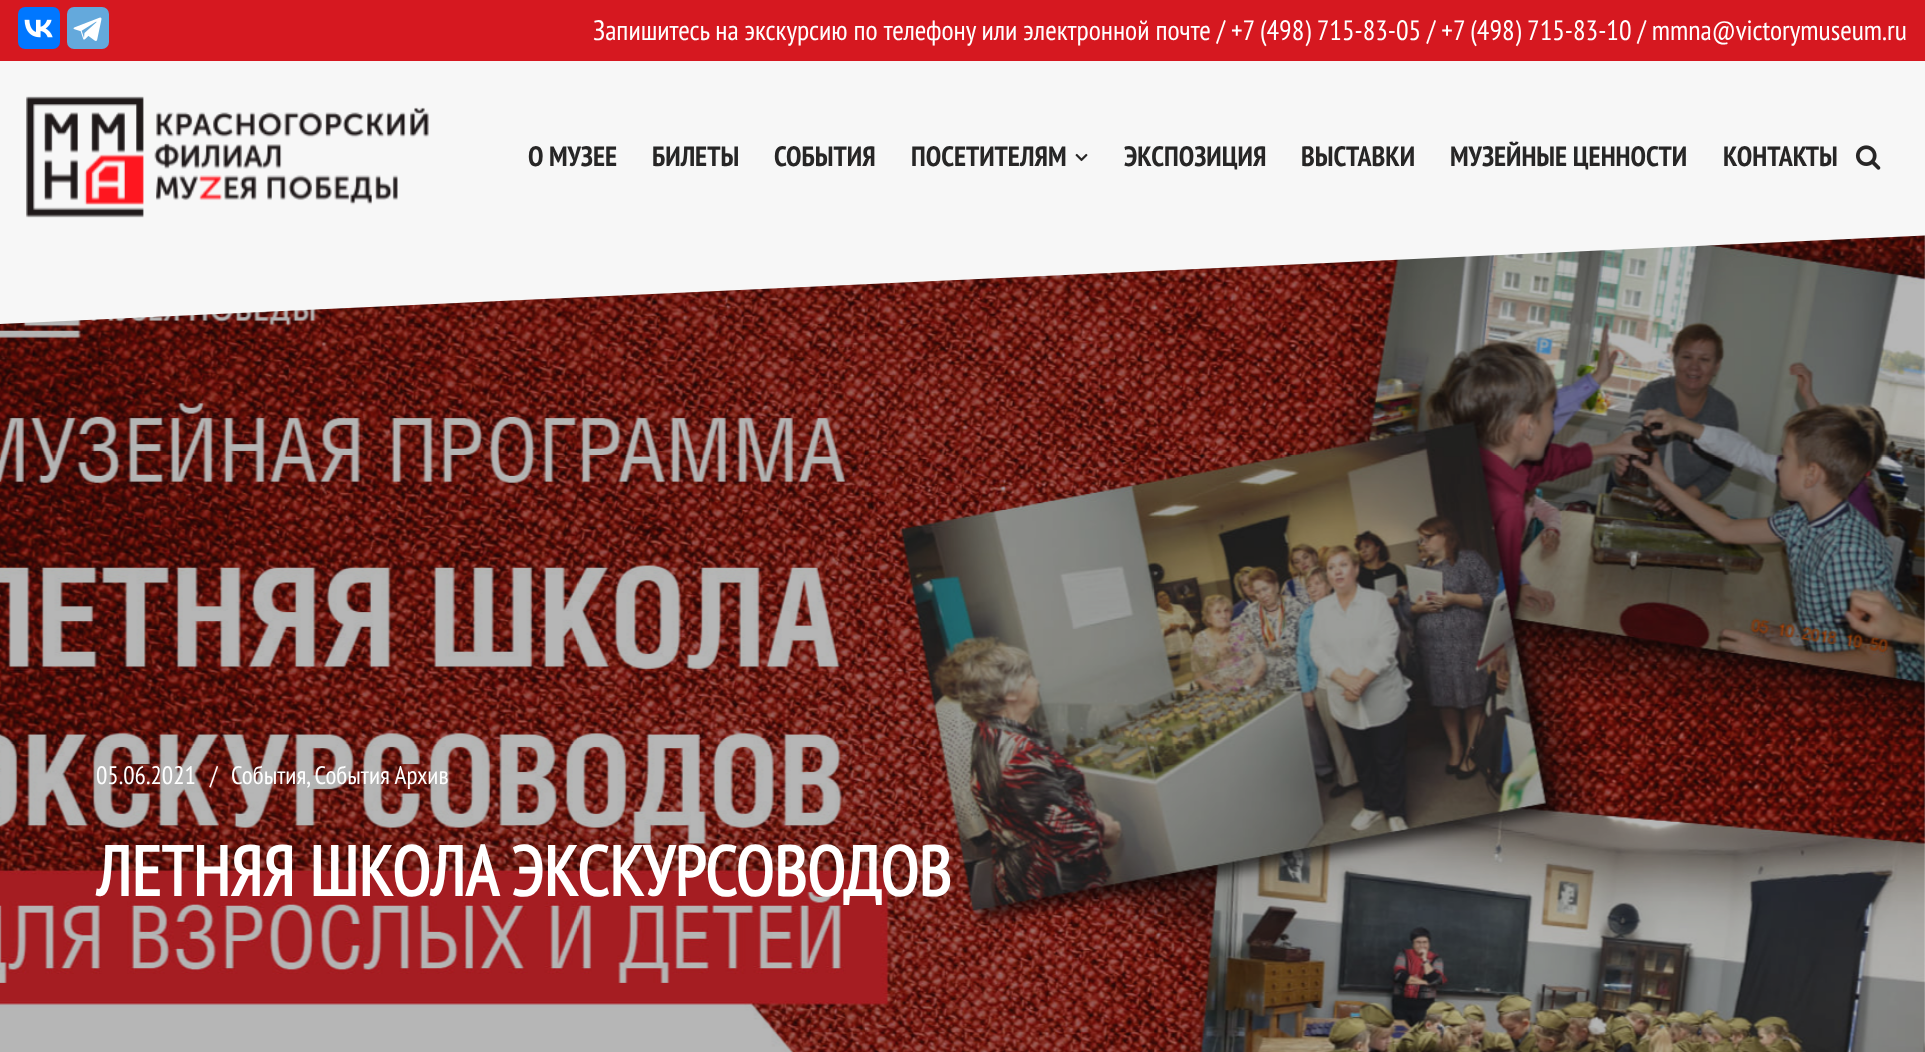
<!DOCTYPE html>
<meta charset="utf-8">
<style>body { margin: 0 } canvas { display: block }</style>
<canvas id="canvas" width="1925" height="1052"></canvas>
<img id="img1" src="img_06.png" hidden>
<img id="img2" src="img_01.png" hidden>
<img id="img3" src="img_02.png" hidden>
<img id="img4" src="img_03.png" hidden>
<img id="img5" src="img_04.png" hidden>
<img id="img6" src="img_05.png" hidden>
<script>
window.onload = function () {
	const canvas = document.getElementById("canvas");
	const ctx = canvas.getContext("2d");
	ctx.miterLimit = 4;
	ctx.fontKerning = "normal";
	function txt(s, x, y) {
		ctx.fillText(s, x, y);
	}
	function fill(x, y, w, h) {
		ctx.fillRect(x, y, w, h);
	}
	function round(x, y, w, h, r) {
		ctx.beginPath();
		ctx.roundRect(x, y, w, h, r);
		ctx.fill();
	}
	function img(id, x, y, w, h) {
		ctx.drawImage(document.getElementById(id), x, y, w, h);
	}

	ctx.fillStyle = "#FFFFFF";
	fill(0, 0, 1925, 1052);
	img("img1", 0, 235, 1925, 817);
	ctx.fillStyle = "#F7F7F7";
	ctx.beginPath();
	ctx.moveTo(0, 61);
	ctx.lineTo(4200, 61);
	ctx.lineTo(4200, 131);
	ctx.lineTo(0, 324);
	ctx.closePath();
	ctx.fill();
	ctx.fillStyle = "#D61820";
	fill(0, 0, 1925, 61);
	ctx.fillStyle = "#0077FF";
	round(18, 7, 42, 42, 7);
	img("img2", 24, 19, 29, 19);
	ctx.fillStyle = "#64A9DC";
	round(67, 7, 42, 42, 7);
	img("img3", 73, 17, 29, 24);
	img("img4", 26, 96, 403, 122);
	img("img5", 1075, 153, 13, 9);
	img("img6", 1855, 145, 26, 25);
	ctx.font = "28px PT Sans Narrow";
	ctx.fillStyle = "#FFFFFF";
	txt("Запишитесь на экскурсию по телефону или электронной почте / +7 (498) 715-83-05 / +7 (498) 715-83-10 / mmna@victorymuseum.ru", 593, 40);
	ctx.font = "bold 28px 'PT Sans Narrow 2'";
	ctx.fillStyle = "#272626";
	txt("О МУЗЕЕ", 528, 166);
	txt("БИЛЕТЫ", 652, 166);
	txt("СОБЫТИЯ", 774, 166);
	txt("ПОСЕТИТЕЛЯМ", 911, 166);
	txt("ЭКСПОЗИЦИЯ", 1124, 166);
	txt("ВЫСТАВКИ", 1301, 166);
	txt("МУЗЕЙНЫЕ ЦЕННОСТИ", 1450, 166);
	txt("КОНТАКТЫ", 1723, 166);
	ctx.font = "25.25px PT Sans Narrow";
	ctx.fillStyle = "#FFFFFF";
	txt("05.06.2021", 96, 784);
	txt("/", 210, 784);
	txt("События, События Архив", 231, 784);
	ctx.font = "bold 70px PT Sans Narrow";
	txt("ЛЕТНЯЯ ШКОЛА ЭКСКУРСОВОДОВ", 96, 896);
};
</script>
